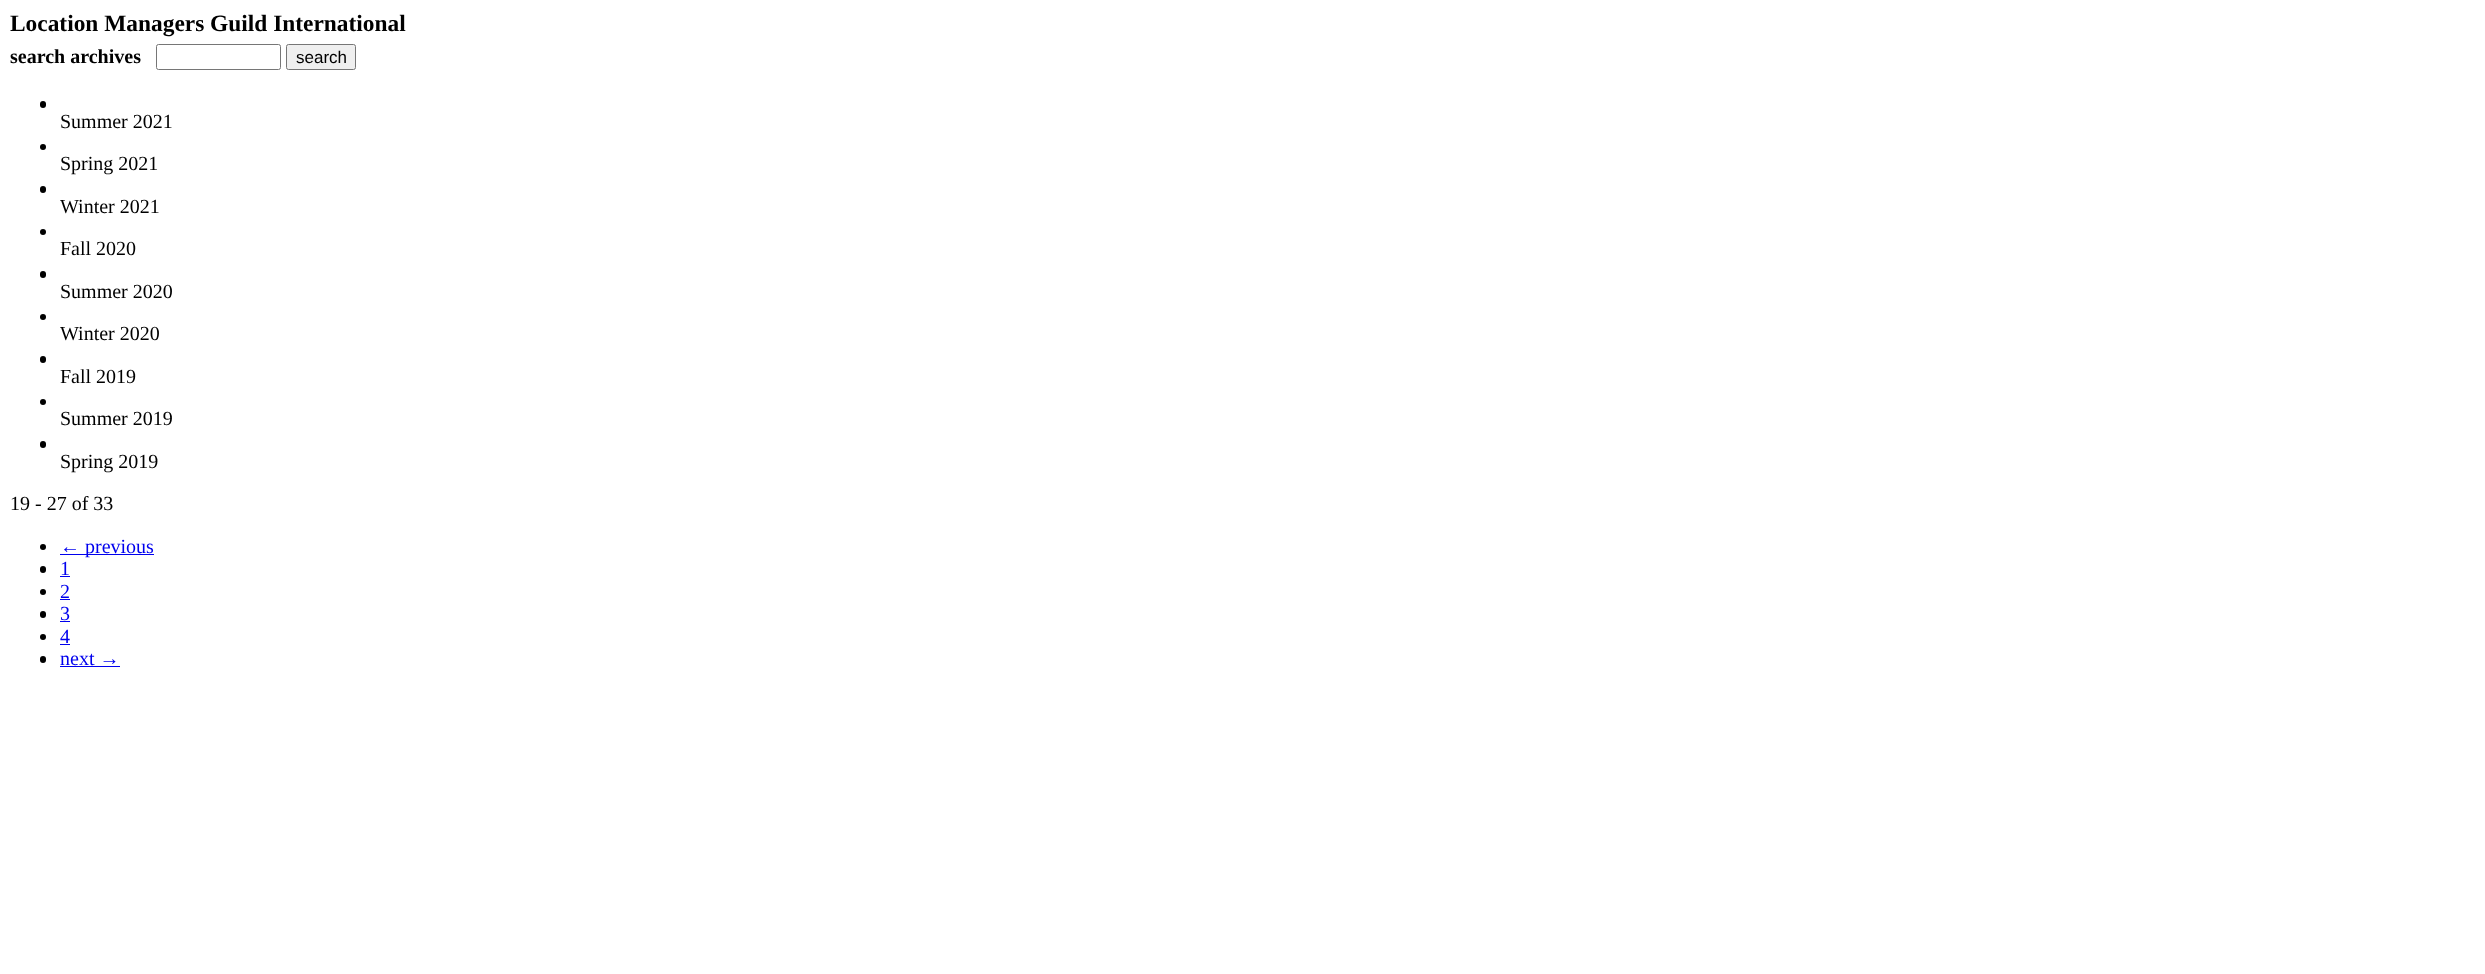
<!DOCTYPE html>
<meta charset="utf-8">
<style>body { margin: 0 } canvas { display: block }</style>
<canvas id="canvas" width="2485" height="974"></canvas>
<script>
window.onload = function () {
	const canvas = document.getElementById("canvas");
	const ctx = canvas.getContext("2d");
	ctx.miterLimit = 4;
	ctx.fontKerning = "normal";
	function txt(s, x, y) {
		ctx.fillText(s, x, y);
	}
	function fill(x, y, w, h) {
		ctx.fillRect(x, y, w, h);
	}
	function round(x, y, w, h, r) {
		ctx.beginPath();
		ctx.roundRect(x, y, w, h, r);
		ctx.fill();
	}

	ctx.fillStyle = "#FFFFFF";
	fill(0, 0, 2485, 974);
	ctx.beginPath();
	ctx.roundRect(156.5, 44.5, 124, 25, 2);
	ctx.strokeStyle = "#767676";
	ctx.stroke();
	ctx.fillStyle = "#EFEFEF";
	ctx.beginPath();
	ctx.roundRect(286.5, 44.5, 69, 25, 2);
	ctx.fill();
	ctx.stroke();
	ctx.fillStyle = "#000000";
	round(40, 101, 6, 7, 3);
	ctx.beginPath();
	ctx.arc(43, 147, 3, 0, Math.PI * 2);
	ctx.fill();
	round(40, 186, 6, 7, 3);
	ctx.beginPath();
	ctx.arc(43, 232, 3, 0, Math.PI * 2);
	ctx.fill();
	round(40, 271, 6, 7, 3);
	ctx.beginPath();
	ctx.arc(43, 317, 3, 0, Math.PI * 2);
	ctx.fill();
	round(40, 356, 6, 7, 3);
	ctx.beginPath();
	ctx.arc(43, 402, 3, 0, Math.PI * 2);
	ctx.fill();
	round(40, 441, 6, 7, 3);
	ctx.beginPath();
	ctx.arc(43, 547, 3, 0, Math.PI * 2);
	ctx.fill();
	ctx.fillStyle = "#0000EE";
	fill(60, 554, 94, 1);
	ctx.fillStyle = "#000000";
	round(40, 566, 6, 7, 3);
	ctx.fillStyle = "#0000EE";
	fill(60, 576, 10, 1);
	ctx.fillStyle = "#000000";
	ctx.beginPath();
	ctx.arc(43, 592, 3, 0, Math.PI * 2);
	ctx.fill();
	ctx.fillStyle = "#0000EE";
	fill(60, 599, 10, 1);
	ctx.fillStyle = "#000000";
	round(40, 611, 6, 7, 3);
	ctx.fillStyle = "#0000EE";
	fill(60, 621, 10, 1);
	ctx.fillStyle = "#000000";
	ctx.beginPath();
	ctx.arc(43, 637, 3, 0, Math.PI * 2);
	ctx.fill();
	ctx.fillStyle = "#0000EE";
	fill(60, 644, 10, 1);
	ctx.fillStyle = "#000000";
	round(40, 656, 6, 7, 3);
	ctx.fillStyle = "#0000EE";
	fill(60, 666, 60, 1);
	ctx.font = "bold 23.4px Liberation Serif";
	ctx.fillStyle = "#000000";
	txt("Location Managers Guild International", 10, 31);
	ctx.font = "bold 20px Liberation Serif";
	txt("search archives", 10, 63);
	ctx.font = "17px Liberation Sans";
	txt("search", 296, 63);
	ctx.font = "20px Liberation Serif";
	txt("Summer 2021", 60, 128);
	txt("Spring 2021", 60, 170);
	txt("Winter 2021", 60, 213);
	txt("Fall 2020", 60, 255);
	txt("Summer 2020", 60, 298);
	txt("Winter 2020", 60, 340);
	txt("Fall 2019", 60, 383);
	txt("Summer 2019", 60, 425);
	txt("Spring 2019", 60, 468);
	txt("19 - 27 of 33", 10, 510);
	ctx.fillStyle = "#0000EE";
	txt("← previous", 60, 553);
	txt("1", 60, 575);
	txt("2", 60, 598);
	txt("3", 60, 620);
	txt("4", 60, 643);
	txt("next →", 60, 665);
};
</script>
